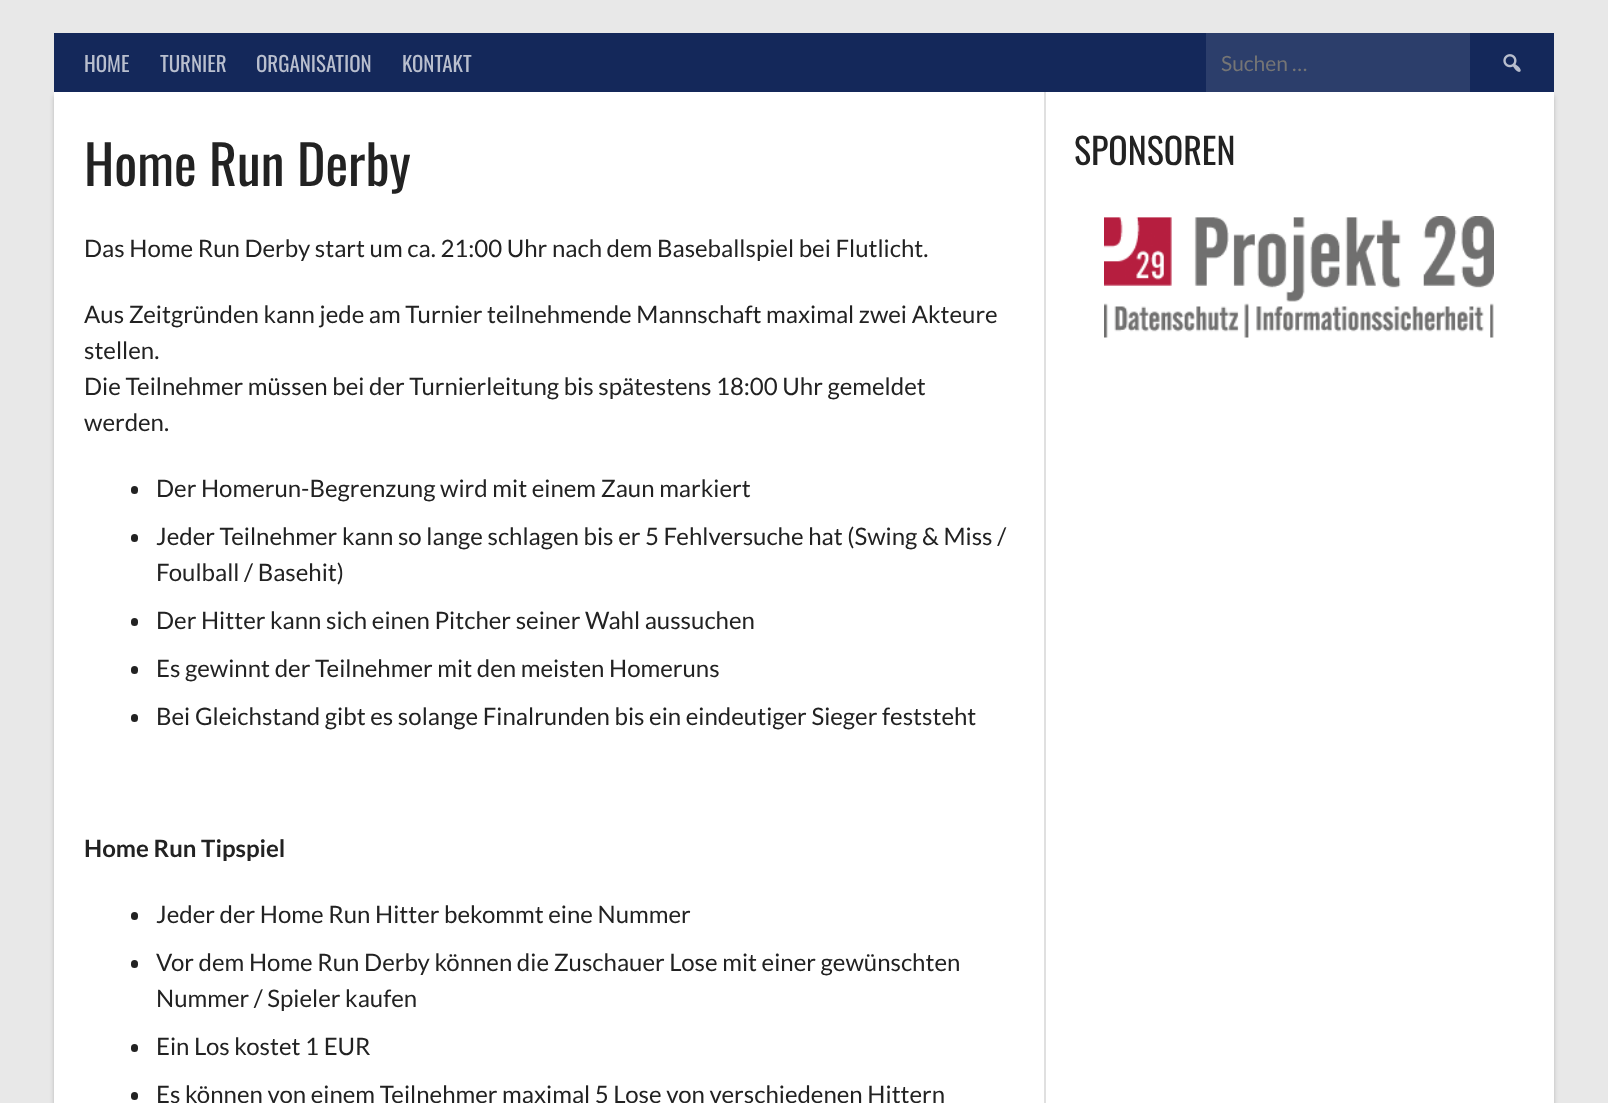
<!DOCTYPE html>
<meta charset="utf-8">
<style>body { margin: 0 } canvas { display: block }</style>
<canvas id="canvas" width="1608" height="1103"></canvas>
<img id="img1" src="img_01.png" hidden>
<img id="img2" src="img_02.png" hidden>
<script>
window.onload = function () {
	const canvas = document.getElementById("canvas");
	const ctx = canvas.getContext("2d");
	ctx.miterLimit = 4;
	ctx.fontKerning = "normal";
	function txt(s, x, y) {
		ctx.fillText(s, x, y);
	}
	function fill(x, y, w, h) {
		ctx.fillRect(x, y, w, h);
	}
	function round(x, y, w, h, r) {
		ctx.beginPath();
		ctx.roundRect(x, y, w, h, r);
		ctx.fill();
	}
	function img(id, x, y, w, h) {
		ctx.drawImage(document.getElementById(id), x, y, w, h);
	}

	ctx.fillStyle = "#E8E8E8";
	fill(0, 0, 1608, 1103);
	ctx.fillStyle = "rgba(0, 0, 0, 0.2)";
	ctx.filter = "blur(2px)";
	ctx.beginPath();
	ctx.rect(54, 96, 1500, 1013);
	ctx.fill();
	ctx.filter = "none";
	ctx.fillStyle = "#14285A";
	fill(54, 33, 1500, 59);
	ctx.fillStyle = "#2C3E6B";
	fill(1206, 33, 264, 59);
	img("img1", 1503, 54, 18, 18);
	ctx.fillStyle = "#FFFFFF";
	fill(54, 92, 1500, 1011);
	ctx.fillStyle = "#E0E0E0";
	ctx.beginPath();
	ctx.moveTo(56, 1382);
	ctx.lineTo(1046, 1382);
	ctx.lineTo(1046, 92);
	ctx.lineTo(1044, 92);
	ctx.lineTo(1044, 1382);
	ctx.closePath();
	ctx.fill();
	ctx.fillStyle = "#222222";
	round(131, 486, 7, 8, 3.5);
	round(131, 534, 7, 8, 3.5);
	round(131, 618, 7, 8, 3.5);
	round(131, 666, 7, 8, 3.5);
	round(131, 714, 7, 8, 3.5);
	round(131, 912, 7, 8, 3.5);
	round(131, 960, 7, 8, 3.5);
	round(131, 1044, 7, 8, 3.5);
	round(131, 1092, 7, 8, 3.5);
	img("img2", 1104, 216, 390, 122);
	ctx.font = "21px Oswald";
	ctx.fillStyle = "#B9BFCE";
	txt("HOME", 84, 72);
	txt("TURNIER", 160, 72);
	txt("ORGANISATION", 256, 72);
	txt("KONTAKT", 402, 72);
	ctx.font = "21px Lato";
	ctx.fillStyle = "#757575";
	txt("Suchen …", 1221, 71);
	ctx.font = "54px Oswald";
	ctx.fillStyle = "#222222";
	txt("Home Run Derby", 84, 186);
	ctx.font = "24px Lato";
	txt("Das Home Run Derby start um ca. 21:00 Uhr nach dem Baseballspiel bei Flutlicht.", 84, 257);
	txt("Aus Zeitgründen kann jede am Turnier teilnehmende Mannschaft maximal zwei Akteure", 84, 323);
	txt("stellen.", 84, 359);
	txt("Die Teilnehmer müssen bei der Turnierleitung bis spätestens 18:00 Uhr gemeldet", 84, 395);
	txt("werden.", 84, 431);
	txt("Der Homerun-Begrenzung wird mit einem Zaun markiert", 156, 497);
	txt("Jeder Teilnehmer kann so lange schlagen bis er 5 Fehlversuche hat (Swing & Miss /", 156, 545);
	txt("Foulball / Basehit)", 156, 581);
	txt("Der Hitter kann sich einen Pitcher seiner Wahl aussuchen", 156, 629);
	txt("Es gewinnt der Teilnehmer mit den meisten Homeruns", 156, 677);
	txt("Bei Gleichstand gibt es solange Finalrunden bis ein eindeutiger Sieger feststeht", 156, 725);
	ctx.font = "bold 24px Lato";
	txt("Home Run Tipspiel", 84, 857);
	ctx.font = "24px Lato";
	txt("Jeder der Home Run Hitter bekommt eine Nummer", 156, 923);
	txt("Vor dem Home Run Derby können die Zuschauer Lose mit einer gewünschten", 156, 971);
	txt("Nummer / Spieler kaufen", 156, 1007);
	txt("Ein Los kostet 1 EUR", 156, 1055);
	txt("Es können von einem Teilnehmer maximal 5 Lose von verschiedenen Hittern", 156, 1103);
	ctx.font = "36px Oswald";
	txt("SPONSOREN", 1074, 165);
};
</script>
